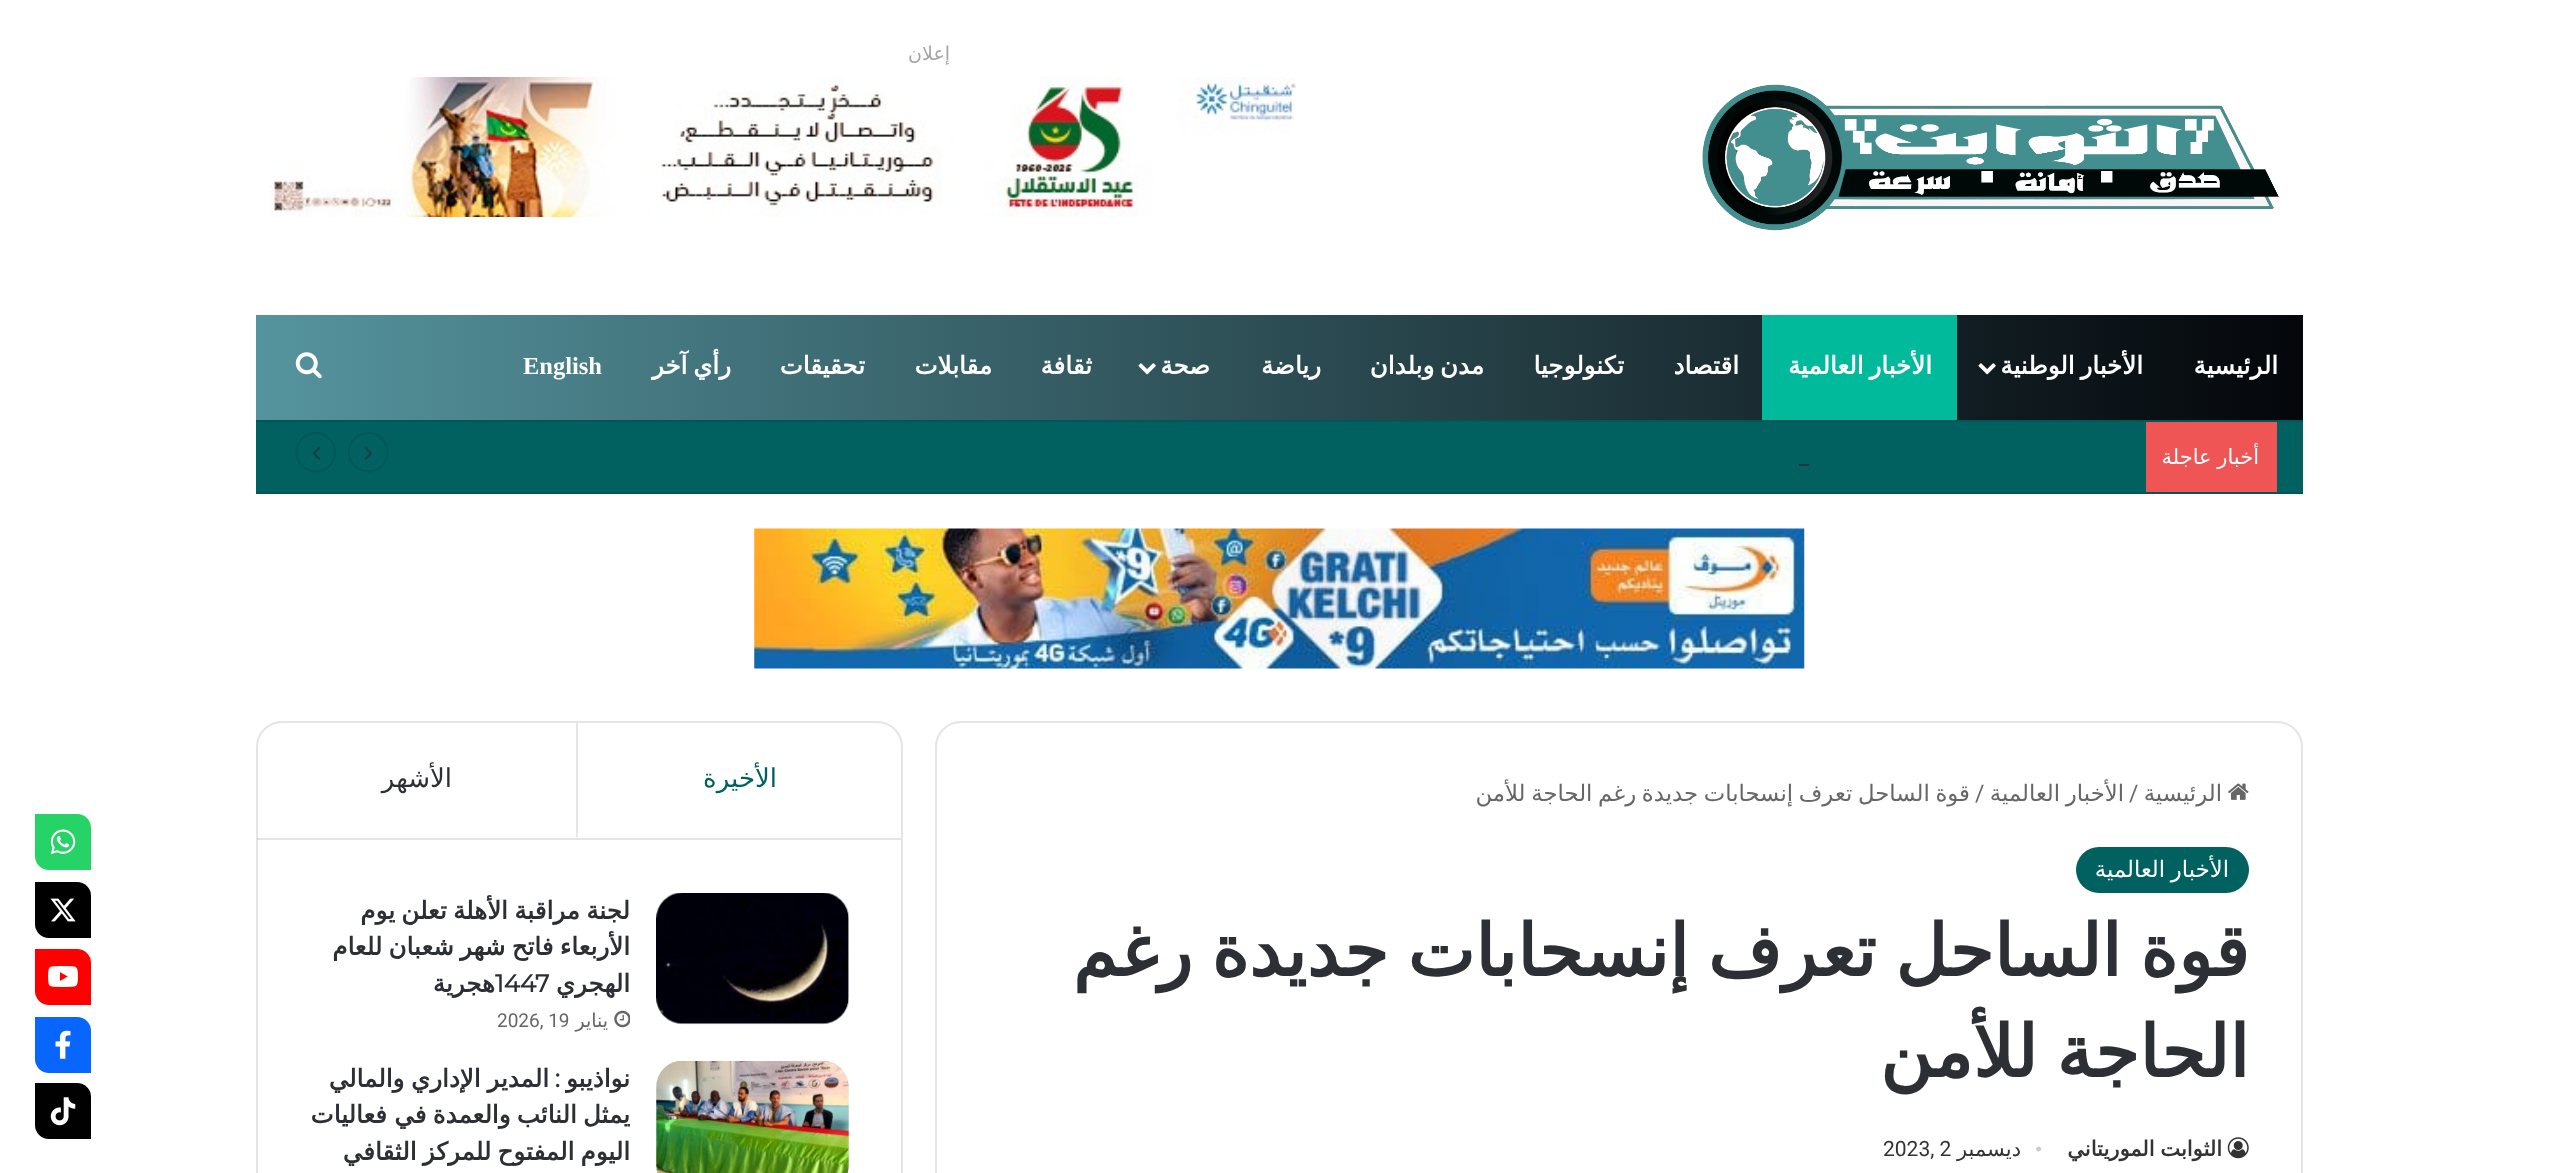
<!DOCTYPE html>
<meta charset="utf-8">
<style>body { margin: 0 } canvas { display: block }</style>
<canvas id="canvas" width="2557" height="1173"></canvas>
<img id="img1" src="img_01.png" hidden>
<img id="img2" src="img_02.png" hidden>
<img id="img3" src="img_03.png" hidden>
<img id="img4" src="img_04.png" hidden>
<img id="img5" src="img_05.png" hidden>
<img id="img6" src="img_06.png" hidden>
<img id="img7" src="img_07.png" hidden>
<img id="img8" src="img_08.png" hidden>
<img id="img9" src="img_09.png" hidden>
<img id="img10" src="img_10.png" hidden>
<img id="img11" src="img_11.png" hidden>
<img id="img12" src="img_12.png" hidden>
<img id="img13" src="img_13.png" hidden>
<img id="img14" src="img_14.png" hidden>
<img id="img15" src="img_15.png" hidden>
<img id="img16" src="img_16.png" hidden>
<img id="img17" src="img_17.png" hidden>
<img id="img18" src="img_18.png" hidden>
<script>
window.onload = function () {
	const canvas = document.getElementById("canvas");
	const ctx = canvas.getContext("2d");
	ctx.miterLimit = 4;
	ctx.fontKerning = "normal";
	function txt(s, x, y) {
		ctx.fillText(s, x, y);
	}
	function fill(x, y, w, h) {
		ctx.fillRect(x, y, w, h);
	}
	function round(x, y, w, h, r) {
		ctx.beginPath();
		ctx.roundRect(x, y, w, h, r);
		ctx.fill();
	}
	function img(id, x, y, w, h) {
		ctx.drawImage(document.getElementById(id), x, y, w, h);
	}
	let gradient;

	ctx.fillStyle = "#FFFFFF";
	fill(0, 0, 2557, 1173);
	img("img1", 269, 77, 1027, 140);
	img("img2", 1702, 84, 577, 147);
	gradient = ctx.createLinearGradient(256, 368, 2303, 367);
	gradient.addColorStop(0, "#55949E");
	gradient.addColorStop(1, "#04060A");
	ctx.fillStyle = gradient;
	fill(256, 315, 2047, 105);
	img("img3", 1978, 363, 18, 12);
	ctx.fillStyle = "#00BA9B";
	fill(1762, 315, 195, 105);
	img("img4", 1138, 363, 18, 12);
	img("img5", 295, 352, 27, 27);
	ctx.fillStyle = "#016060";
	fill(256, 422, 2047, 70);
	ctx.fillStyle = "#015656";
	fill(256, 420, 2047, 2);
	fill(256, 492, 2047, 2);
	ctx.fillStyle = "#F05555";
	fill(2146, 422, 131, 70);
	ctx.beginPath();
	ctx.moveTo(368.5, 471.5);
	ctx.bezierCurveTo(357.5, 471.5, 349, 463, 349, 452.5);
	ctx.bezierCurveTo(349, 441.5, 357.5, 433, 368.5, 433);
	ctx.bezierCurveTo(379, 433, 387.5, 441.5, 387.5, 452.5);
	ctx.bezierCurveTo(387.5, 463, 379, 471.5, 368.5, 471.5);
	ctx.closePath();
	ctx.strokeStyle = "#015656";
	ctx.lineWidth = 1.8;
	ctx.stroke();
	img("img6", 364, 447, 8, 13);
	ctx.beginPath();
	ctx.moveTo(316, 471.5);
	ctx.bezierCurveTo(305, 471.5, 296.5, 463, 296.5, 452.5);
	ctx.bezierCurveTo(296.5, 441.5, 305, 433, 316, 433);
	ctx.bezierCurveTo(326.5, 433, 335, 441.5, 335, 452.5);
	ctx.bezierCurveTo(335, 463, 326.5, 471.5, 316, 471.5);
	ctx.closePath();
	ctx.stroke();
	img("img7", 312, 447, 8, 13);
	img("img8", 754, 528, 1051, 141);
	ctx.beginPath();
	ctx.roundRect(936, 722, 1366, 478, 25);
	ctx.strokeStyle = "#E5E5E5";
	ctx.lineWidth = 2;
	ctx.stroke();
	img("img9", 2228, 783, 21, 17);
	ctx.fillStyle = "#016060";
	round(2076, 847, 173, 46, 23);
	img("img10", 2227, 1137, 22, 22);
	ctx.beginPath();
	ctx.roundRect(257, 722, 645, 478, 25);
	ctx.stroke();
	ctx.fillStyle = "rgba(0, 0, 0, 0.1)";
	fill(257, 838, 644, 2);
	ctx.fillStyle = "#E6E6E6";
	ctx.beginPath();
	ctx.moveTo(576, 723);
	ctx.lineTo(576, 838);
	ctx.lineTo(578, 836);
	ctx.lineTo(578, 723);
	ctx.closePath();
	ctx.fill();
	img("img11", 656, 893, 193, 132);
	img("img12", 614, 1010, 16, 18);
	img("img13", 656, 1061, 193, 112);
	ctx.fillStyle = "#25D366";
	ctx.beginPath();
	ctx.roundRect(35, 814, 56, 56, [0, 14, 0, 14]);
	ctx.fill();
	img("img14", 50, 829, 26, 25);
	ctx.fillStyle = "#000000";
	ctx.beginPath();
	ctx.roundRect(35, 882, 56, 56, [0, 14, 0, 14]);
	ctx.fill();
	img("img15", 50, 898, 26, 24);
	ctx.fillStyle = "#FF0000";
	ctx.beginPath();
	ctx.roundRect(35, 949, 56, 56, [0, 14, 0, 14]);
	ctx.fill();
	img("img16", 48, 966, 30, 21);
	ctx.fillStyle = "#0866FF";
	ctx.beginPath();
	ctx.roundRect(35, 1017, 56, 56, [0, 14, 0, 14]);
	ctx.fill();
	img("img17", 55, 1030, 16, 29);
	ctx.fillStyle = "#010101";
	ctx.beginPath();
	ctx.roundRect(35, 1083, 56, 56, [0, 14, 0, 14]);
	ctx.fill();
	img("img18", 50, 1097, 26, 29);
	ctx.direction = "rtl";
	ctx.font = "19px DejaVu Sans";
	ctx.fillStyle = "#A5A5A5";
	txt("إعلان", 950, 60);
	ctx.font = "bold 24.5px DejaVu Sans";
	ctx.fillStyle = "#FFFFFF";
	txt("الرئيسية", 2278, 374);
	ctx.wordSpacing = "-2px";
	txt("الأخبار الوطنية", 2143, 374);
	txt("الأخبار العالمية", 1932, 374);
	ctx.wordSpacing = "0px";
	txt("اقتصاد", 1739, 374);
	txt("تكنولوجيا", 1624, 374);
	ctx.wordSpacing = "-2px";
	txt("مدن وبلدان", 1484, 374);
	ctx.wordSpacing = "0px";
	txt("رياضة", 1321, 374);
	txt("صحة", 1210, 374);
	txt("ثقافة", 1092, 374);
	txt("مقابلات", 992, 374);
	txt("تحقيقات", 865, 374);
	ctx.wordSpacing = "-2px";
	txt("رأي آخر", 731, 374);
	ctx.wordSpacing = "0px";
	ctx.direction = "ltr";
	ctx.font = "bold 24.5px Liberation Serif";
	txt("English", 523, 374);
	ctx.wordSpacing = "-1px";
	ctx.direction = "rtl";
	ctx.font = "21px DejaVu Sans";
	txt("أخبار عاجلة", 2259, 464);
	ctx.wordSpacing = "0px";
	ctx.direction = "ltr";
	ctx.font = "22.75px Roboto";
	ctx.fillStyle = "#2C2F34";
	txt("_", 1799, 464);
	ctx.direction = "rtl";
	ctx.font = "22.75px DejaVu Sans";
	ctx.fillStyle = "#666666";
	txt("الرئيسية", 2222, 801);
	ctx.wordSpacing = "-1.5px";
	txt("الأخبار العالمية", 2124, 801);
	ctx.wordSpacing = "0px";
	ctx.direction = "ltr";
	ctx.font = "22.75px Roboto";
	txt("/", 2129, 801);
	txt("/", 1975, 801);
	ctx.wordSpacing = "-1.5px";
	ctx.direction = "rtl";
	ctx.font = "22.75px DejaVu Sans";
	txt("قوة الساحل تعرف إنسحابات جديدة رغم الحاجة للأمن", 1970, 801);
	ctx.fillStyle = "#FFFFFF";
	txt("الأخبار العالمية", 2229, 877);
	ctx.wordSpacing = "-4px";
	ctx.font = "bold 71.75px DejaVu Sans";
	ctx.fillStyle = "#2C2F34";
	txt("قوة الساحل تعرف إنسحابات جديدة رغم", 2249, 976);
	txt("الحاجة للأمن", 2249, 1077);
	ctx.wordSpacing = "-1px";
	ctx.font = "bold 21px DejaVu Sans";
	ctx.fillStyle = "#333333";
	txt("الثوابت الموريتاني", 2222, 1156);
	ctx.wordSpacing = "0px";
	ctx.direction = "ltr";
	ctx.font = "21px Liberation Serif";
	ctx.fillStyle = "#CCCCCC";
	txt("•", 2035, 1156);
	ctx.direction = "rtl";
	ctx.font = "21px DejaVu Sans";
	ctx.fillStyle = "#333333";
	txt("ديسمبر", 2021, 1156);
	ctx.direction = "ltr";
	ctx.font = "21px Roboto";
	txt("2023, 2", 1883, 1156);
	ctx.direction = "rtl";
	ctx.font = "26px DejaVu Sans";
	ctx.fillStyle = "#016060";
	txt("الأخيرة", 777, 787);
	ctx.fillStyle = "#2C2F34";
	txt("الأشهر", 452, 787);
	ctx.wordSpacing = "-1.5px";
	ctx.font = "bold 24.5px DejaVu Sans";
	txt("لجنة مراقبة الأهلة تعلن يوم", 630, 919);
	txt("الأربعاء فاتح شهر شعبان للعام", 630, 955);
	ctx.wordSpacing = "0px";
	txt("الهجري", 630, 992);
	ctx.direction = "ltr";
	ctx.font = "bold 24.5px Montserrat";
	txt("1447", 495, 992);
	ctx.direction = "rtl";
	ctx.font = "bold 24.5px DejaVu Sans";
	txt("هجرية", 495, 992);
	ctx.font = "19px DejaVu Sans";
	ctx.fillStyle = "#666666";
	txt("يناير", 608, 1027);
	ctx.direction = "ltr";
	ctx.font = "19px Roboto";
	txt("2026, 19", 497, 1027);
	ctx.direction = "rtl";
	ctx.font = "bold 24.5px DejaVu Sans";
	ctx.fillStyle = "#2C2F34";
	txt("نواذيبو", 630, 1087);
	ctx.font = "bold 24.5px Montserrat";
	txt(":", 560, 1087);
	ctx.wordSpacing = "-1px";
	ctx.font = "bold 24.5px DejaVu Sans";
	txt("المدير الإداري والمالي", 549, 1087);
	ctx.wordSpacing = "-1.5px";
	txt("يمثل النائب والعمدة في", 630, 1123);
	ctx.wordSpacing = "0px";
	txt("فعاليات", 387, 1123);
	ctx.wordSpacing = "-1.5px";
	txt("اليوم المفتوح للمركز الثقافي", 630, 1160);
};
</script>
